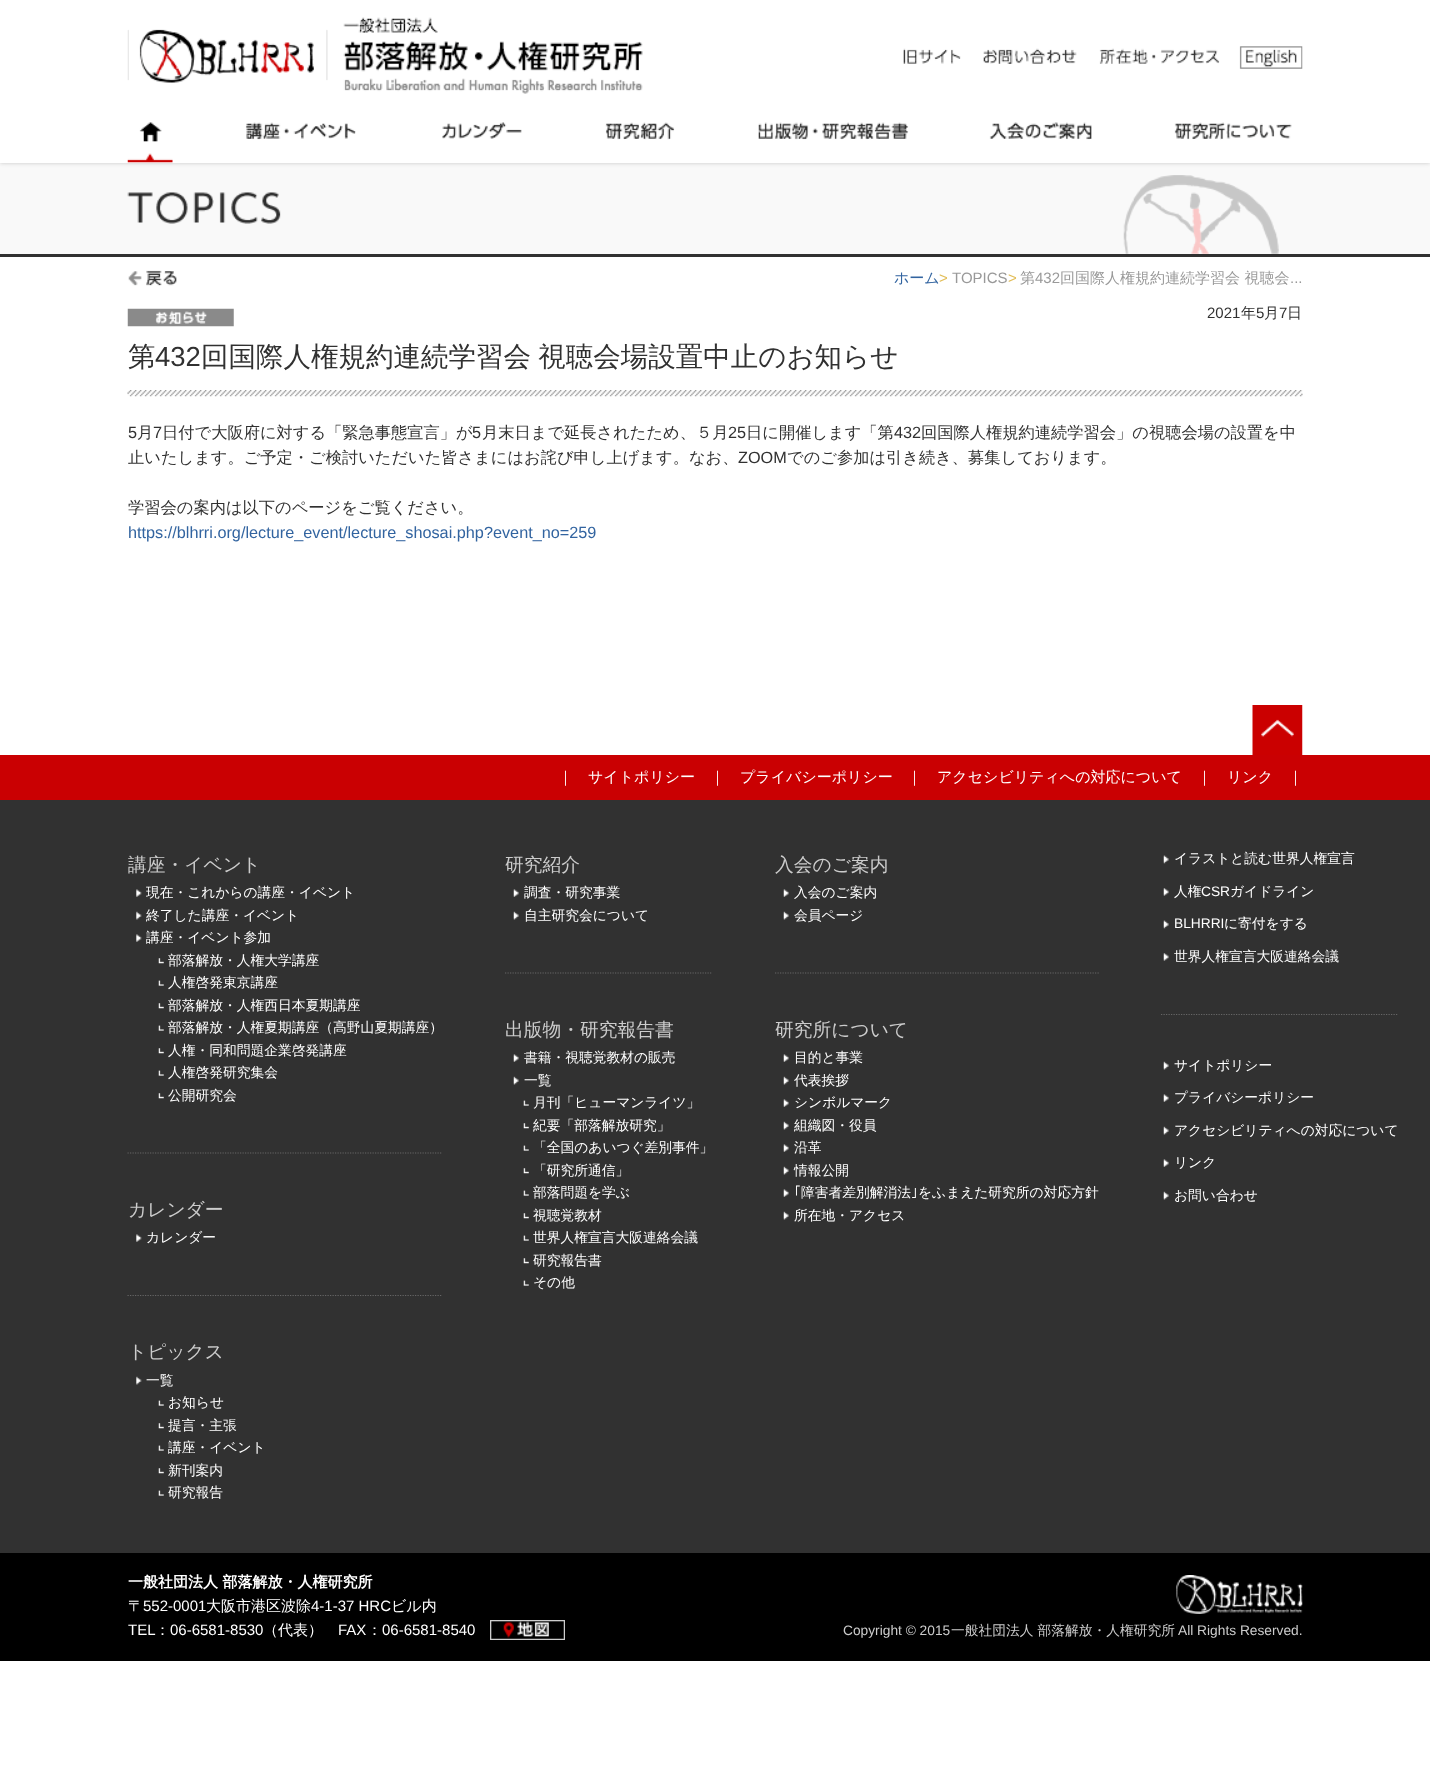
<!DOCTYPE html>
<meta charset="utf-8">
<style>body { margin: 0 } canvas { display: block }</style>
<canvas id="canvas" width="1430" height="1775"></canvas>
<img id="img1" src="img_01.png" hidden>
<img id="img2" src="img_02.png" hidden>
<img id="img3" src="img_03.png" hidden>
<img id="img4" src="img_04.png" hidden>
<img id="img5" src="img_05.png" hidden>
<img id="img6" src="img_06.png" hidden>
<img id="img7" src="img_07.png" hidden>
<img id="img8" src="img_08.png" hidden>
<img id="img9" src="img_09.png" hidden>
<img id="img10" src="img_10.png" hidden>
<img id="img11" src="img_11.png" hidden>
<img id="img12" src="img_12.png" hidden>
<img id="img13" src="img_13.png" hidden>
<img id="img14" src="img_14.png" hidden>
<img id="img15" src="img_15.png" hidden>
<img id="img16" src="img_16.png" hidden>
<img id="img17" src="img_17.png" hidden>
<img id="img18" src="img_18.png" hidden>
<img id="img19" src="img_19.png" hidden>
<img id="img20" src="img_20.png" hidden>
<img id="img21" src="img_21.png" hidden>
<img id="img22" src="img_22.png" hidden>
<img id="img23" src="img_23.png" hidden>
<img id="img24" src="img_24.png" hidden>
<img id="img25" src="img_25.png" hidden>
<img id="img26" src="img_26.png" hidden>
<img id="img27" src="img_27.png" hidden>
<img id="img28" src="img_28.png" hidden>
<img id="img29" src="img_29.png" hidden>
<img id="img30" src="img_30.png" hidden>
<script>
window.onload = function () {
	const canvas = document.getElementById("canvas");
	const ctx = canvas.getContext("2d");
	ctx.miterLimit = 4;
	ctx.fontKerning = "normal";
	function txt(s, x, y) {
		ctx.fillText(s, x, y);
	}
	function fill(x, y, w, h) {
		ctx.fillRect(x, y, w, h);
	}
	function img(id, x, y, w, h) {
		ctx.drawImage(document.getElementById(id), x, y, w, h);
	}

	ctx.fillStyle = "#FFFFFF";
	fill(0, 0, 1430, 1775);
	ctx.fillStyle = "#F9F9F9";
	fill(0, 163, 1430, 91);
	ctx.save();
	ctx.beginPath();
	ctx.moveTo(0, 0);
	ctx.lineTo(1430, 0);
	ctx.lineTo(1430, 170);
	ctx.lineTo(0, 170);
	ctx.closePath();
	ctx.moveTo(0, 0);
	ctx.lineTo(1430, 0);
	ctx.lineTo(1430, 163);
	ctx.lineTo(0, 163);
	ctx.closePath();
	ctx.clip("evenodd");
	ctx.fillStyle = "rgba(0, 0, 0, 0.2)";
	ctx.filter = "blur(2px)";
	ctx.beginPath();
	ctx.rect(0, 0, 1430, 163);
	ctx.fill();
	ctx.filter = "none";
	ctx.restore();
	img("img1", 127, 17, 516, 77);
	img("img2", 903, 48, 58, 16);
	img("img3", 983, 48, 94, 16);
	img("img4", 1099, 48, 121, 16);
	img("img5", 1239, 46, 64, 23);
	img("img6", 127, 122, 46, 41);
	img("img7", 245, 122, 111, 18);
	img("img8", 442, 122, 80, 17);
	img("img9", 605, 122, 70, 18);
	img("img10", 758, 122, 151, 18);
	img("img11", 989, 122, 103, 18);
	img("img12", 1174, 122, 118, 18);
	ctx.fillStyle = "#313131";
	fill(0, 254, 1430, 3);
	img("img13", 1123, 175, 156, 79);
	img("img14", 127, 192, 154, 32);
	img("img15", 128, 270, 49, 16);
	img("img16", 127, 308, 107, 19);
	img("img17", 127, 390, 1176, 7);
	img("img18", 1252, 705, 51, 50);
	ctx.fillStyle = "#CA0002";
	fill(0, 755, 1430, 45);
	ctx.fillStyle = "#313131";
	fill(0, 800, 1430, 753);
	img("img19", 136, 889, 6, 8);
	img("img20", 136, 911, 6, 9);
	img("img19", 136, 934, 6, 8);
	img("img21", 158, 958, 6, 6);
	img("img22", 158, 980, 6, 6);
	img("img21", 158, 1003, 6, 6);
	img("img22", 158, 1025, 6, 6);
	img("img21", 158, 1048, 6, 6);
	img("img22", 158, 1070, 6, 6);
	img("img21", 158, 1093, 6, 6);
	ctx.beginPath();
	ctx.moveTo(127.5, 1153);
	ctx.lineTo(442.5, 1153);
	ctx.strokeStyle = "#666666";
	ctx.lineWidth = 1.2;
	ctx.setLineDash([1.25, 1.25]);
	ctx.stroke();
	img("img19", 136, 1234, 6, 8);
	ctx.beginPath();
	ctx.moveTo(127.5, 1295.5);
	ctx.lineTo(442.5, 1295.5);
	ctx.stroke();
	img("img20", 136, 1376, 6, 9);
	img("img22", 158, 1400, 6, 6);
	img("img21", 158, 1423, 6, 6);
	img("img22", 158, 1445, 6, 6);
	img("img21", 158, 1468, 6, 6);
	img("img22", 158, 1490, 6, 6);
	img("img23", 513, 889, 6, 8);
	img("img24", 513, 911, 6, 9);
	ctx.beginPath();
	ctx.moveTo(505, 973);
	ctx.lineTo(712.5, 973);
	ctx.stroke();
	img("img23", 513, 1054, 6, 8);
	img("img24", 513, 1076, 6, 9);
	img("img22", 523, 1100, 6, 6);
	img("img21", 523, 1123, 6, 6);
	img("img22", 523, 1145, 6, 6);
	img("img21", 523, 1168, 6, 6);
	img("img22", 523, 1190, 6, 6);
	img("img21", 523, 1213, 6, 6);
	img("img22", 523, 1235, 6, 6);
	img("img21", 523, 1258, 6, 6);
	img("img22", 523, 1280, 6, 6);
	img("img25", 783, 889, 6, 8);
	img("img26", 783, 911, 6, 9);
	ctx.beginPath();
	ctx.moveTo(775, 973);
	ctx.lineTo(1099, 973);
	ctx.stroke();
	img("img25", 783, 1054, 6, 8);
	img("img26", 783, 1076, 6, 9);
	img("img25", 783, 1099, 6, 8);
	img("img26", 783, 1121, 6, 9);
	img("img25", 783, 1144, 6, 8);
	img("img26", 783, 1166, 6, 9);
	img("img25", 783, 1189, 6, 8);
	img("img26", 783, 1211, 6, 9);
	img("img27", 1163, 855, 6, 9);
	img("img28", 1163, 888, 6, 8);
	img("img27", 1163, 920, 6, 9);
	img("img28", 1163, 953, 6, 8);
	ctx.beginPath();
	ctx.moveTo(1161, 1014.5);
	ctx.lineTo(1397.5, 1014.5);
	ctx.stroke();
	img("img24", 1163, 1061, 6, 9);
	img("img23", 1163, 1094, 6, 8);
	img("img24", 1163, 1126, 6, 9);
	img("img23", 1163, 1159, 6, 8);
	img("img24", 1163, 1191, 6, 9);
	ctx.fillStyle = "#000000";
	fill(0, 1553, 1430, 108);
	img("img29", 490, 1620, 75, 20);
	img("img30", 1176, 1575, 127, 39);
	ctx.font = "500 15px WenQuanYi Zen Hei";
	ctx.fillStyle = "#3264A0";
	txt("ホーム", 894, 283);
	ctx.font = "15px Liberation Sans";
	ctx.fillStyle = "#E2BE59";
	txt(">", 939, 283);
	ctx.fillStyle = "#999999";
	txt("TOPICS", 952, 283);
	ctx.fillStyle = "#E2BE59";
	txt(">", 1008, 283);
	ctx.font = "500 15px WenQuanYi Zen Hei";
	ctx.fillStyle = "#999999";
	txt("第", 1020, 283);
	ctx.font = "15px Liberation Sans";
	txt("432", 1035, 283);
	ctx.font = "500 15px WenQuanYi Zen Hei";
	txt("回国際人権規約連続学習会 視聴会", 1060, 283);
	ctx.font = "15px Liberation Sans";
	txt("...", 1290, 283);
	ctx.fillStyle = "#313131";
	txt("2021", 1207, 318);
	ctx.font = "500 15px WenQuanYi Zen Hei";
	txt("年", 1241, 318);
	ctx.font = "15px Liberation Sans";
	txt("5", 1256, 318);
	ctx.font = "500 15px WenQuanYi Zen Hei";
	txt("月", 1264, 318);
	ctx.font = "15px Liberation Sans";
	txt("7", 1279, 318);
	ctx.font = "500 15px WenQuanYi Zen Hei";
	txt("日", 1287, 318);
	ctx.font = "500 27.5px WenQuanYi Zen Hei";
	txt("第", 128, 366);
	ctx.font = "27.5px Liberation Sans";
	txt("432", 155, 366);
	ctx.wordSpacing = "-1px";
	ctx.font = "500 27.5px WenQuanYi Zen Hei";
	txt("回国際人権規約連続学習会 視聴会場設置中止のお知らせ", 201, 366);
	ctx.wordSpacing = "0px";
	ctx.font = "16.25px Liberation Sans";
	txt("5", 128, 438);
	ctx.font = "500 16.25px WenQuanYi Zen Hei";
	txt("月", 137, 438);
	ctx.font = "16.25px Liberation Sans";
	txt("7", 153, 438);
	ctx.font = "500 16.25px WenQuanYi Zen Hei";
	txt("日付で大阪府に対する「緊急事態宣言」が", 162, 438);
	ctx.font = "16.25px Liberation Sans";
	txt("5", 472, 438);
	ctx.font = "500 16.25px WenQuanYi Zen Hei";
	txt("月末日まで延長されたため、５月", 482, 438);
	ctx.font = "16.25px Liberation Sans";
	txt("25", 728, 438);
	ctx.font = "500 16.25px WenQuanYi Zen Hei";
	txt("日に開催します「第", 746, 438);
	ctx.font = "16.25px Liberation Sans";
	txt("432", 894, 438);
	ctx.font = "500 16.25px WenQuanYi Zen Hei";
	txt("回国際人権規約連続学習会」の視聴会場の設置を中", 921, 438);
	txt("止いたします。ご予定・ご検討いただいた皆さまにはお詫び申し上げます。なお、", 128, 463);
	ctx.font = "16.25px Liberation Sans";
	txt("ZOOM", 738, 463);
	ctx.font = "500 16.25px WenQuanYi Zen Hei";
	txt("でのご参加は引き続き、募集しております。", 787, 463);
	txt("学習会の案内は以下のページをご覧ください。", 128, 513);
	ctx.font = "16.25px Liberation Sans";
	ctx.fillStyle = "#3264A0";
	txt("https://blhrri.org/lecture_event/lecture_shosai.php?event_no=259", 128, 538);
	ctx.font = "500 15px WenQuanYi Zen Hei";
	ctx.fillStyle = "#FFFFFF";
	txt("｜", 558, 782);
	txt("サイトポリシー", 588, 782);
	txt("｜", 710, 782);
	txt("プライバシーポリシー", 740, 782);
	txt("｜", 907, 782);
	txt("アクセシビリティへの対応について", 937, 782);
	txt("｜", 1197, 782);
	txt("リンク", 1227, 782);
	txt("｜", 1288, 782);
	ctx.font = "500 18.75px WenQuanYi Zen Hei";
	ctx.fillStyle = "#CCCCCC";
	txt("講座・イベント", 128, 871);
	ctx.font = "500 13.75px WenQuanYi Zen Hei";
	ctx.fillStyle = "#FFFFFF";
	txt("現在・これからの講座・イベント", 146, 897);
	txt("終了した講座・イベント", 146, 920);
	txt("講座・イベント参加", 146, 942);
	txt("部落解放・人権大学講座", 168, 965);
	txt("人権啓発東京講座", 168, 987);
	txt("部落解放・人権西日本夏期講座", 168, 1010);
	txt("部落解放・人権夏期講座（高野山夏期講座）", 168, 1032);
	txt("人権・同和問題企業啓発講座", 168, 1055);
	txt("人権啓発研究集会", 168, 1077);
	txt("公開研究会", 168, 1100);
	ctx.font = "500 18.75px WenQuanYi Zen Hei";
	ctx.fillStyle = "#CCCCCC";
	txt("カレンダー", 128, 1216);
	ctx.font = "500 13.75px WenQuanYi Zen Hei";
	ctx.fillStyle = "#FFFFFF";
	txt("カレンダー", 146, 1242);
	ctx.font = "500 18.75px WenQuanYi Zen Hei";
	ctx.fillStyle = "#CCCCCC";
	txt("トピックス", 128, 1358);
	ctx.font = "500 13.75px WenQuanYi Zen Hei";
	ctx.fillStyle = "#FFFFFF";
	txt("一覧", 146, 1385);
	txt("お知らせ", 168, 1407);
	txt("提言・主張", 168, 1430);
	txt("講座・イベント", 168, 1452);
	txt("新刊案内", 168, 1475);
	txt("研究報告", 168, 1497);
	ctx.font = "500 18.75px WenQuanYi Zen Hei";
	ctx.fillStyle = "#CCCCCC";
	txt("研究紹介", 505, 871);
	ctx.font = "500 13.75px WenQuanYi Zen Hei";
	ctx.fillStyle = "#FFFFFF";
	txt("調査・研究事業", 524, 897);
	txt("自主研究会について", 524, 920);
	ctx.font = "500 18.75px WenQuanYi Zen Hei";
	ctx.fillStyle = "#CCCCCC";
	txt("出版物・研究報告書", 505, 1036);
	ctx.font = "500 13.75px WenQuanYi Zen Hei";
	ctx.fillStyle = "#FFFFFF";
	txt("書籍・視聴覚教材の販売", 524, 1062);
	txt("一覧", 524, 1085);
	txt("月刊「ヒューマンライツ」", 533, 1107);
	txt("紀要「部落解放研究」", 533, 1130);
	txt("「全国のあいつぐ差別事件」", 533, 1152);
	txt("「研究所通信」", 533, 1175);
	txt("部落問題を学ぶ", 533, 1197);
	txt("視聴覚教材", 533, 1220);
	txt("世界人権宣言大阪連絡会議", 533, 1242);
	txt("研究報告書", 533, 1265);
	txt("その他", 533, 1287);
	ctx.font = "500 18.75px WenQuanYi Zen Hei";
	ctx.fillStyle = "#CCCCCC";
	txt("入会のご案内", 775, 871);
	ctx.font = "500 13.75px WenQuanYi Zen Hei";
	ctx.fillStyle = "#FFFFFF";
	txt("入会のご案内", 794, 897);
	txt("会員ページ", 794, 920);
	ctx.font = "500 18.75px WenQuanYi Zen Hei";
	ctx.fillStyle = "#CCCCCC";
	txt("研究所について", 775, 1036);
	ctx.font = "500 13.75px WenQuanYi Zen Hei";
	ctx.fillStyle = "#FFFFFF";
	txt("目的と事業", 794, 1062);
	txt("代表挨拶", 794, 1085);
	txt("シンボルマーク", 794, 1107);
	txt("組織図・役員", 794, 1130);
	txt("沿革", 794, 1152);
	txt("情報公開", 794, 1175);
	ctx.font = "13.75px IPAGothic";
	txt("｢", 794, 1197);
	ctx.font = "500 13.75px WenQuanYi Zen Hei";
	txt("障害者差別解消法", 801, 1197);
	ctx.font = "13.75px IPAGothic";
	txt("｣", 911, 1197);
	ctx.font = "500 13.75px WenQuanYi Zen Hei";
	txt("をふまえた研究所の対応方針", 918, 1197);
	txt("所在地・アクセス", 794, 1220);
	txt("イラストと読む世界人権宣言", 1174, 863);
	txt("人権", 1174, 896);
	ctx.font = "13.75px Liberation Sans";
	txt("CSR", 1201, 896);
	ctx.font = "500 13.75px WenQuanYi Zen Hei";
	txt("ガイドライン", 1230, 896);
	ctx.font = "13.75px Liberation Sans";
	txt("BLHRRI", 1174, 928);
	ctx.font = "500 13.75px WenQuanYi Zen Hei";
	txt("に寄付をする", 1224, 928);
	txt("世界人権宣言大阪連絡会議", 1174, 961);
	txt("サイトポリシー", 1174, 1070);
	txt("プライバシーポリシー", 1174, 1102);
	txt("アクセシビリティへの対応について", 1174, 1135);
	txt("リンク", 1174, 1167);
	txt("お問い合わせ", 1174, 1200);
	ctx.font = "bold 15px WenQuanYi Zen Hei";
	txt("一般社団法人 部落解放・人権研究所", 128, 1587);
	ctx.font = "500 15px WenQuanYi Zen Hei";
	txt("〒", 128, 1611);
	ctx.font = "15px Liberation Sans";
	txt("552-0001", 143, 1611);
	ctx.font = "500 15px WenQuanYi Zen Hei";
	txt("大阪市港区波除", 206, 1611);
	ctx.font = "15px Liberation Sans";
	txt("4-1-37 HRC", 311, 1611);
	ctx.font = "500 15px WenQuanYi Zen Hei";
	txt("ビル内", 391, 1611);
	ctx.font = "15px Liberation Sans";
	txt("TEL", 128, 1635);
	ctx.font = "500 15px WenQuanYi Zen Hei";
	txt("：", 155, 1635);
	ctx.font = "15px Liberation Sans";
	txt("06-6581-8530", 170, 1635);
	ctx.font = "500 15px WenQuanYi Zen Hei";
	txt("（代表）", 263, 1635);
	ctx.font = "15px Liberation Sans";
	txt("FAX", 338, 1635);
	ctx.font = "500 15px WenQuanYi Zen Hei";
	txt("：", 367, 1635);
	ctx.font = "15px Liberation Sans";
	txt("06-6581-8540", 382, 1635);
	ctx.font = "13.75px Liberation Sans";
	ctx.fillStyle = "#CCCCCC";
	txt("Copyright © 2015", 843, 1635);
	ctx.font = "500 13.75px WenQuanYi Zen Hei";
	txt("一般社団法人 部落解放・人権研究所", 951, 1635);
	ctx.font = "13.75px Liberation Sans";
	txt("All Rights Reserved.", 1178, 1635);
};
</script>
